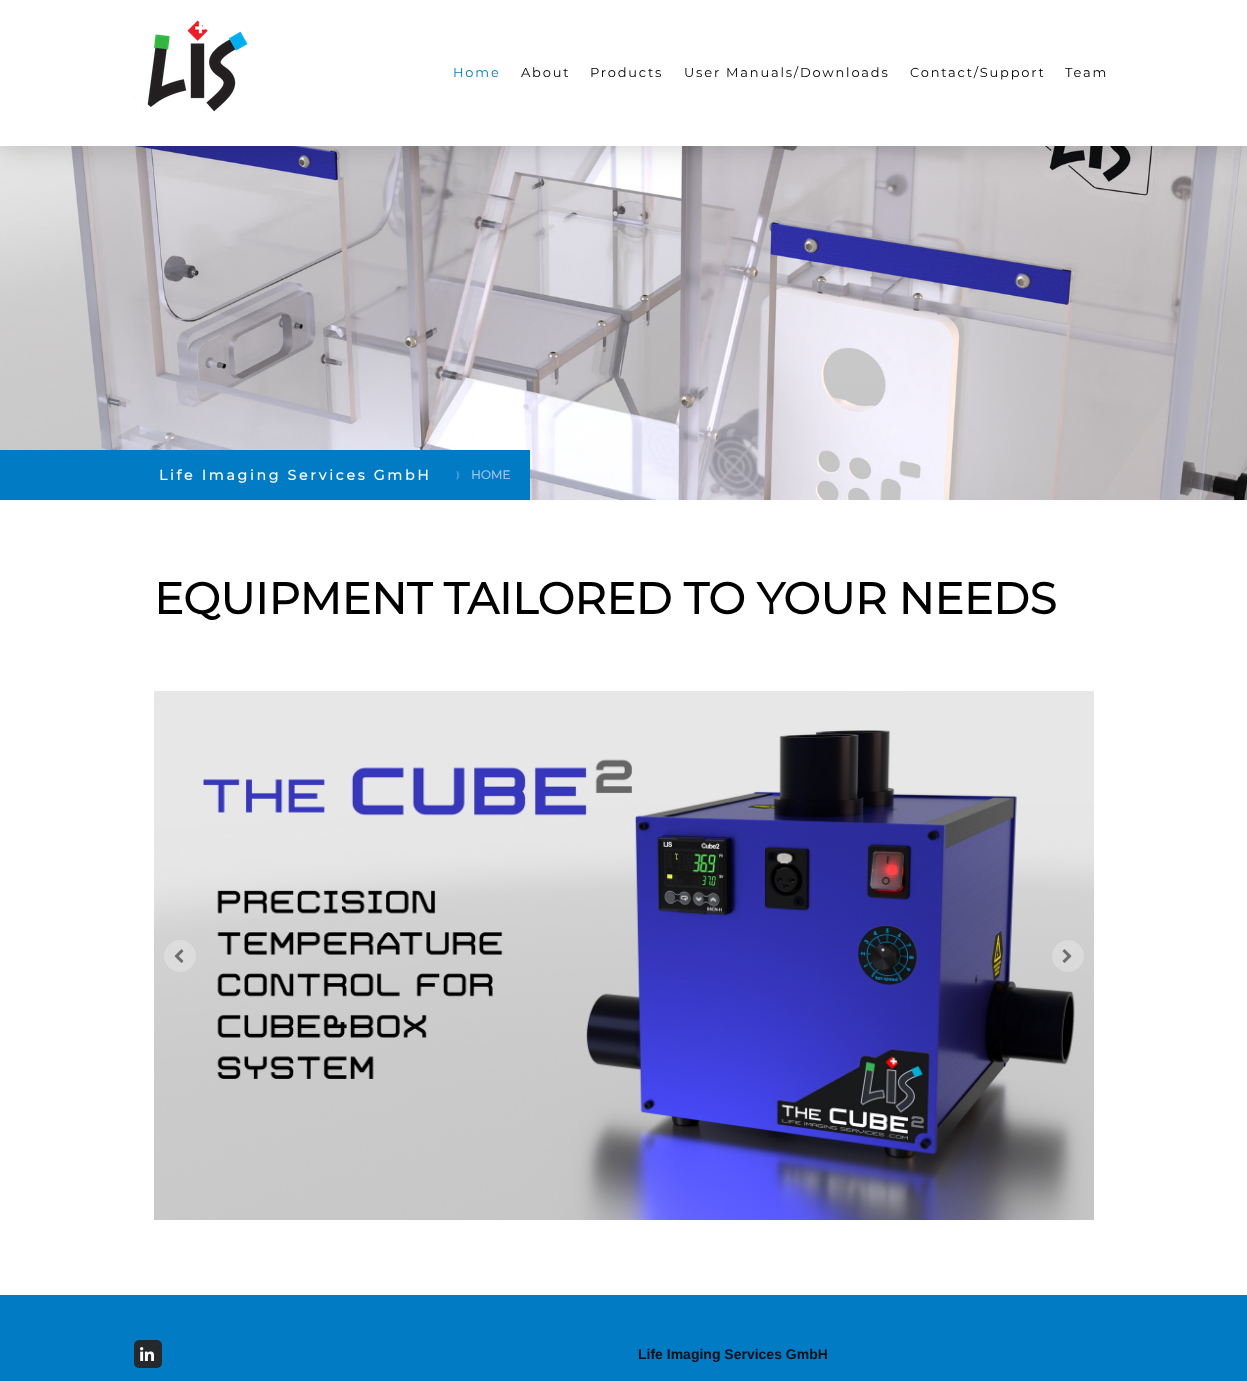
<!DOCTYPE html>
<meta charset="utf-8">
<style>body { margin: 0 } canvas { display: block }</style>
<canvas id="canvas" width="1247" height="1381"></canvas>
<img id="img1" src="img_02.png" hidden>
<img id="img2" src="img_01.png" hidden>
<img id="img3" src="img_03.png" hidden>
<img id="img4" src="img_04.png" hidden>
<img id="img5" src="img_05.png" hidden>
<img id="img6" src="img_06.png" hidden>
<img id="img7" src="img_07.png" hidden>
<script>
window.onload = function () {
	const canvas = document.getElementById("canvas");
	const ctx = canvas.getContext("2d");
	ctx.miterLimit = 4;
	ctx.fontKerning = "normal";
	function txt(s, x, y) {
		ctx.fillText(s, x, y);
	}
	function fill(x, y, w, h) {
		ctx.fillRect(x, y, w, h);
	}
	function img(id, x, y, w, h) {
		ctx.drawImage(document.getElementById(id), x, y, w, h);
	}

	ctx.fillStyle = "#FFFFFF";
	fill(0, 0, 1247, 1381);
	img("img1", 0, 146, 1247, 354);
	ctx.fillStyle = "rgba(0, 0, 0, 0.2)";
	ctx.filter = "blur(15px)";
	ctx.beginPath();
	ctx.rect(0, 0, 1247, 146);
	ctx.fill();
	ctx.filter = "none";
	ctx.fillStyle = "#FFFFFF";
	fill(0, 0, 1247, 146);
	img("img2", 134, 20, 114, 92);
	ctx.fillStyle = "#027BC5";
	fill(0, 450, 530, 50);
	img("img3", 154, 691, 940, 529);
	ctx.fillStyle = "rgba(255, 255, 255, 0.25)";
	ctx.beginPath();
	ctx.arc(180, 956, 16, 0, Math.PI * 2);
	ctx.fill();
	img("img4", 174, 949, 10, 14);
	ctx.beginPath();
	ctx.arc(1068, 956, 16, 0, Math.PI * 2);
	ctx.fill();
	img("img5", 1062, 949, 10, 14);
	ctx.fillStyle = "#027BC5";
	fill(0, 1295, 1247, 86);
	img("img6", 134, 1340, 28, 28);
	img("img7", 140, 1347, 14, 14);
	ctx.letterSpacing = "1.8px";
	ctx.font = "100 13px Montserrat";
	txt("Home", 453, 77);
	ctx.fillStyle = "#000000";
	txt("About", 521, 77);
	txt("Products", 590, 77);
	txt("User Manuals/Downloads", 684, 77);
	txt("Contact/Support", 910, 77);
	txt("Team", 1065, 77);
	ctx.letterSpacing = "2.8px";
	ctx.font = "bold 14px Montserrat";
	ctx.fillStyle = "#FFFFFF";
	txt("Life Imaging Services GmbH", 159, 480);
	ctx.letterSpacing = "0px";
	ctx.font = "bold 10px FreeSerif";
	ctx.fillStyle = "#50A0D8";
	txt("⦆", 456, 478);
	ctx.font = "bold 12px Montserrat";
	ctx.fillStyle = "#9EC4EA";
	txt("HOME", 471, 479);
	ctx.font = "bold 44px Montserrat";
	ctx.fillStyle = "#000000";
	txt("EQUIPMENT TAILORED TO YOUR NEEDS", 154, 614);
	ctx.font = "bold 14px Liberation Sans";
	ctx.fillStyle = "#00101A";
	txt("Life Imaging Services GmbH", 638, 1359);
};
</script>
